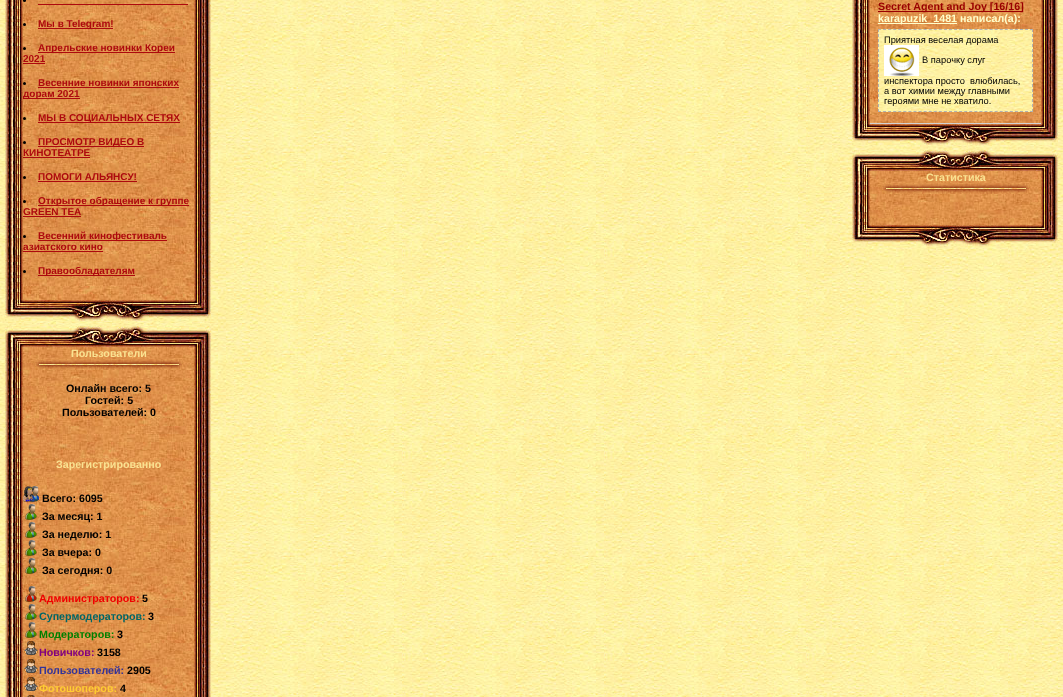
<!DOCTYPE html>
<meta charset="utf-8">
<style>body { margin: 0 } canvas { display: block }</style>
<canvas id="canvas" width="1063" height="697"></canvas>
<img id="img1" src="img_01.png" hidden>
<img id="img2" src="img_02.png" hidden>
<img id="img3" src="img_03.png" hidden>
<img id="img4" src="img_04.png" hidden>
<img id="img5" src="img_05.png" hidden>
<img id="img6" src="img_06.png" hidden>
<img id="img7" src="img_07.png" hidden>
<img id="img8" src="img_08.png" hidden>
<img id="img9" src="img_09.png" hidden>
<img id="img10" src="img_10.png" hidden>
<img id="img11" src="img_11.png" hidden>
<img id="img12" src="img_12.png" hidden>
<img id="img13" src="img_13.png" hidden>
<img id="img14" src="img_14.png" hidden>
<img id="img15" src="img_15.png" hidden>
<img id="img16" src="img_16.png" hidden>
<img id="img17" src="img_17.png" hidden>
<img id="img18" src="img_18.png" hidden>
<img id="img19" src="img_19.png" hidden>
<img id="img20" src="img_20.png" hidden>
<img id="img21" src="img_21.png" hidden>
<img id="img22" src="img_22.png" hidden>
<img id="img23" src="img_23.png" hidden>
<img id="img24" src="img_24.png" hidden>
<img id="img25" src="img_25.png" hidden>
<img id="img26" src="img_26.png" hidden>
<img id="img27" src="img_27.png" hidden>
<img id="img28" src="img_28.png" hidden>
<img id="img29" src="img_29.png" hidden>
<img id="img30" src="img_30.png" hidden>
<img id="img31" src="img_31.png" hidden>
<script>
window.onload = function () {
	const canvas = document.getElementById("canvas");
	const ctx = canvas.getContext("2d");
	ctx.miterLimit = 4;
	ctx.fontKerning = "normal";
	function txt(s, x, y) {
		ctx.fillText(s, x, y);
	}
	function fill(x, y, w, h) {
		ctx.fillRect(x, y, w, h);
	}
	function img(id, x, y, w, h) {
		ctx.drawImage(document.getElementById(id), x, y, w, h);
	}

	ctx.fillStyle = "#FFFFFF";
	fill(0, 0, 1063, 697);
	img("img1", 0, 0, 1063, 697);
	img("img2", 5, 0, 18, 300);
	img("img3", 194, 0, 17, 300);
	img("img4", 23, 0, 171, 300);
	ctx.fillStyle = "#000000";
	ctx.beginPath();
	ctx.arc(24.5, 0.5, 1.5, 0, Math.PI * 2);
	ctx.fill();
	ctx.fillStyle = "#AD090E";
	fill(38, 4, 150, 1);
	ctx.fillStyle = "#000000";
	ctx.beginPath();
	ctx.arc(24.5, 24.5, 1.5, 0, Math.PI * 2);
	ctx.fill();
	ctx.fillStyle = "#AD090E";
	fill(38, 28, 75, 1);
	ctx.fillStyle = "#000000";
	ctx.beginPath();
	ctx.arc(24.5, 48.5, 1.5, 0, Math.PI * 2);
	ctx.fill();
	ctx.fillStyle = "#AD090E";
	fill(38, 52, 137, 1);
	fill(23, 63, 22, 1);
	ctx.fillStyle = "#000000";
	ctx.beginPath();
	ctx.arc(24.5, 83.5, 1.5, 0, Math.PI * 2);
	ctx.fill();
	ctx.fillStyle = "#AD090E";
	fill(38, 87, 141, 1);
	fill(23, 98, 57, 1);
	ctx.fillStyle = "#000000";
	ctx.beginPath();
	ctx.arc(24.5, 118.5, 1.5, 0, Math.PI * 2);
	ctx.fill();
	ctx.fillStyle = "#AD090E";
	fill(38, 122, 142, 1);
	ctx.fillStyle = "#000000";
	ctx.beginPath();
	ctx.arc(24.5, 142.5, 1.5, 0, Math.PI * 2);
	ctx.fill();
	ctx.fillStyle = "#AD090E";
	fill(38, 146, 106, 1);
	fill(23, 157, 67, 1);
	ctx.fillStyle = "#000000";
	ctx.beginPath();
	ctx.arc(24.5, 177.5, 1.5, 0, Math.PI * 2);
	ctx.fill();
	ctx.fillStyle = "#AD090E";
	fill(38, 181, 99, 1);
	ctx.fillStyle = "#000000";
	ctx.beginPath();
	ctx.arc(24.5, 201.5, 1.5, 0, Math.PI * 2);
	ctx.fill();
	ctx.fillStyle = "#AD090E";
	fill(38, 205, 151, 1);
	fill(23, 216, 58, 1);
	ctx.fillStyle = "#000000";
	ctx.beginPath();
	ctx.arc(24.5, 236.5, 1.5, 0, Math.PI * 2);
	ctx.fill();
	ctx.fillStyle = "#AD090E";
	fill(38, 240, 129, 1);
	fill(23, 251, 80, 1);
	ctx.fillStyle = "#000000";
	ctx.beginPath();
	ctx.arc(24.5, 271.5, 1.5, 0, Math.PI * 2);
	ctx.fill();
	ctx.fillStyle = "#AD090E";
	fill(38, 275, 97, 1);
	img("img5", 5, 300, 206, 21);
	img("img6", 5, 326, 206, 21);
	img("img7", 5, 347, 18, 350);
	img("img8", 23, 347, 171, 23);
	img("img9", 35, 359, 147, 11);
	img("img10", 194, 347, 17, 350);
	img("img11", 23, 370, 171, 327);
	img("img12", 23, 486, 16, 16);
	img("img13", 25, 504, 12, 16);
	img("img14", 25, 522, 12, 16);
	img("img15", 25, 540, 12, 16);
	img("img16", 25, 558, 12, 16);
	img("img17", 25, 586, 12, 16);
	img("img18", 25, 604, 12, 16);
	img("img19", 25, 622, 12, 16);
	img("img20", 24, 641, 14, 14);
	img("img21", 24, 659, 14, 14);
	img("img22", 24, 677, 14, 14);
	img("img23", 27, 695, 8, 2);
	img("img24", 852, 0, 18, 124);
	img("img25", 1041, 0, 17, 124);
	img("img26", 870, 0, 171, 123);
	ctx.fillStyle = "#D2D2D2";
	fill(870, 123, 171, 1);
	ctx.fillStyle = "#990000";
	fill(878, 11, 145, 1);
	ctx.fillStyle = "#FFFFCC";
	fill(878, 23, 79, 1);
	img("img27", 878, 29, 155, 83);
	ctx.beginPath();
	ctx.moveTo(878, 29.5);
	ctx.lineTo(1033, 29.5);
	ctx.strokeStyle = "#B2B2B2";
	ctx.setLineDash([3, 2.07]);
	ctx.stroke();
	ctx.beginPath();
	ctx.moveTo(1032.5, 29);
	ctx.lineTo(1032.5, 112);
	ctx.setLineDash([3, 2]);
	ctx.stroke();
	ctx.beginPath();
	ctx.moveTo(878, 111.5);
	ctx.lineTo(1033, 111.5);
	ctx.setLineDash([3, 2.07]);
	ctx.stroke();
	ctx.beginPath();
	ctx.moveTo(878.5, 29);
	ctx.lineTo(878.5, 112);
	ctx.setLineDash([3, 2]);
	ctx.stroke();
	img("img28", 884, 45, 35, 31);
	img("img5", 852, 124, 206, 21);
	img("img6", 852, 150, 206, 21);
	img("img29", 852, 171, 18, 54);
	img("img8", 870, 171, 171, 23);
	img("img9", 882, 183, 147, 11);
	img("img30", 1041, 171, 17, 54);
	img("img31", 870, 194, 171, 31);
	img("img5", 852, 225, 206, 21);
	ctx.font = "bold 10px Liberation Sans";
	ctx.fillStyle = "#AD090E";
	txt("Мы в Telegram!", 38, 27);
	txt("Апрельские новинки Кореи", 38, 51);
	txt("2021", 23, 62);
	txt("Весенние новинки японских", 38, 86);
	txt("дорам 2021", 23, 97);
	txt("МЫ В СОЦИАЛЬНЫХ СЕТЯХ", 38, 121);
	txt("ПРОСМОТР ВИДЕО В", 38, 145);
	txt("КИНОТЕАТРЕ", 23, 156);
	txt("ПОМОГИ АЛЬЯНСУ!", 38, 180);
	txt("Открытое обращение к группе", 38, 204);
	txt("GREEN TEA", 23, 215);
	txt("Весенний кинофестиваль", 38, 239);
	txt("азиатского кино", 23, 250);
	txt("Правообладателям", 38, 274);
	ctx.font = "bold 10.7px Liberation Sans";
	ctx.fillStyle = "#FAE291";
	txt("Пользователи", 71, 357);
	ctx.fillStyle = "#000000";
	txt("Онлайн всего: 5", 66, 392);
	txt("Гостей: 5", 85, 404);
	txt("Пользователей: 0", 62, 416);
	ctx.fillStyle = "#FAE291";
	txt("Зарегистрированно", 56, 468);
	ctx.fillStyle = "#000000";
	txt("Всего: 6095", 42, 502);
	txt("За месяц: 1", 42, 520);
	txt("За неделю: 1", 42, 538);
	txt("За вчера: 0", 42, 556);
	txt("За сегодня: 0", 42, 574);
	ctx.fillStyle = "#F00000";
	txt("Администраторов:", 39, 602);
	ctx.fillStyle = "#000000";
	txt("5", 142, 602);
	ctx.fillStyle = "#006666";
	txt("Супермодераторов:", 39, 620);
	ctx.fillStyle = "#000000";
	txt("3", 148, 620);
	ctx.fillStyle = "#008000";
	txt("Модераторов:", 39, 638);
	ctx.fillStyle = "#000000";
	txt("3", 117, 638);
	ctx.fillStyle = "#800080";
	txt("Новичков:", 39, 656);
	ctx.fillStyle = "#000000";
	txt("3158", 97, 656);
	ctx.fillStyle = "#333399";
	txt("Пользователей:", 39, 674);
	ctx.fillStyle = "#000000";
	txt("2905", 127, 674);
	ctx.fillStyle = "#FFCC33";
	txt("Фотошоперов:", 39, 692);
	ctx.fillStyle = "#000000";
	txt("4", 120, 692);
	ctx.fillStyle = "#990000";
	txt("Secret Agent and Joy [16/16]", 878, 10);
	ctx.fillStyle = "#FFFFCC";
	txt("karapuzik_1481 написал(а):", 878, 22);
	ctx.font = "9.3px Liberation Sans";
	ctx.fillStyle = "#000000";
	txt("Приятная веселая дорама", 884, 43);
	txt("В парочку слуг", 922, 63);
	txt("инспектора просто  влюбилась,", 884, 84);
	txt("а вот химии между главными", 884, 94);
	txt("героями мне не хватило.", 884, 104);
	ctx.font = "bold 10.7px Liberation Sans";
	ctx.fillStyle = "#FAE291";
	txt("Статистика", 926, 181);
};
</script>
